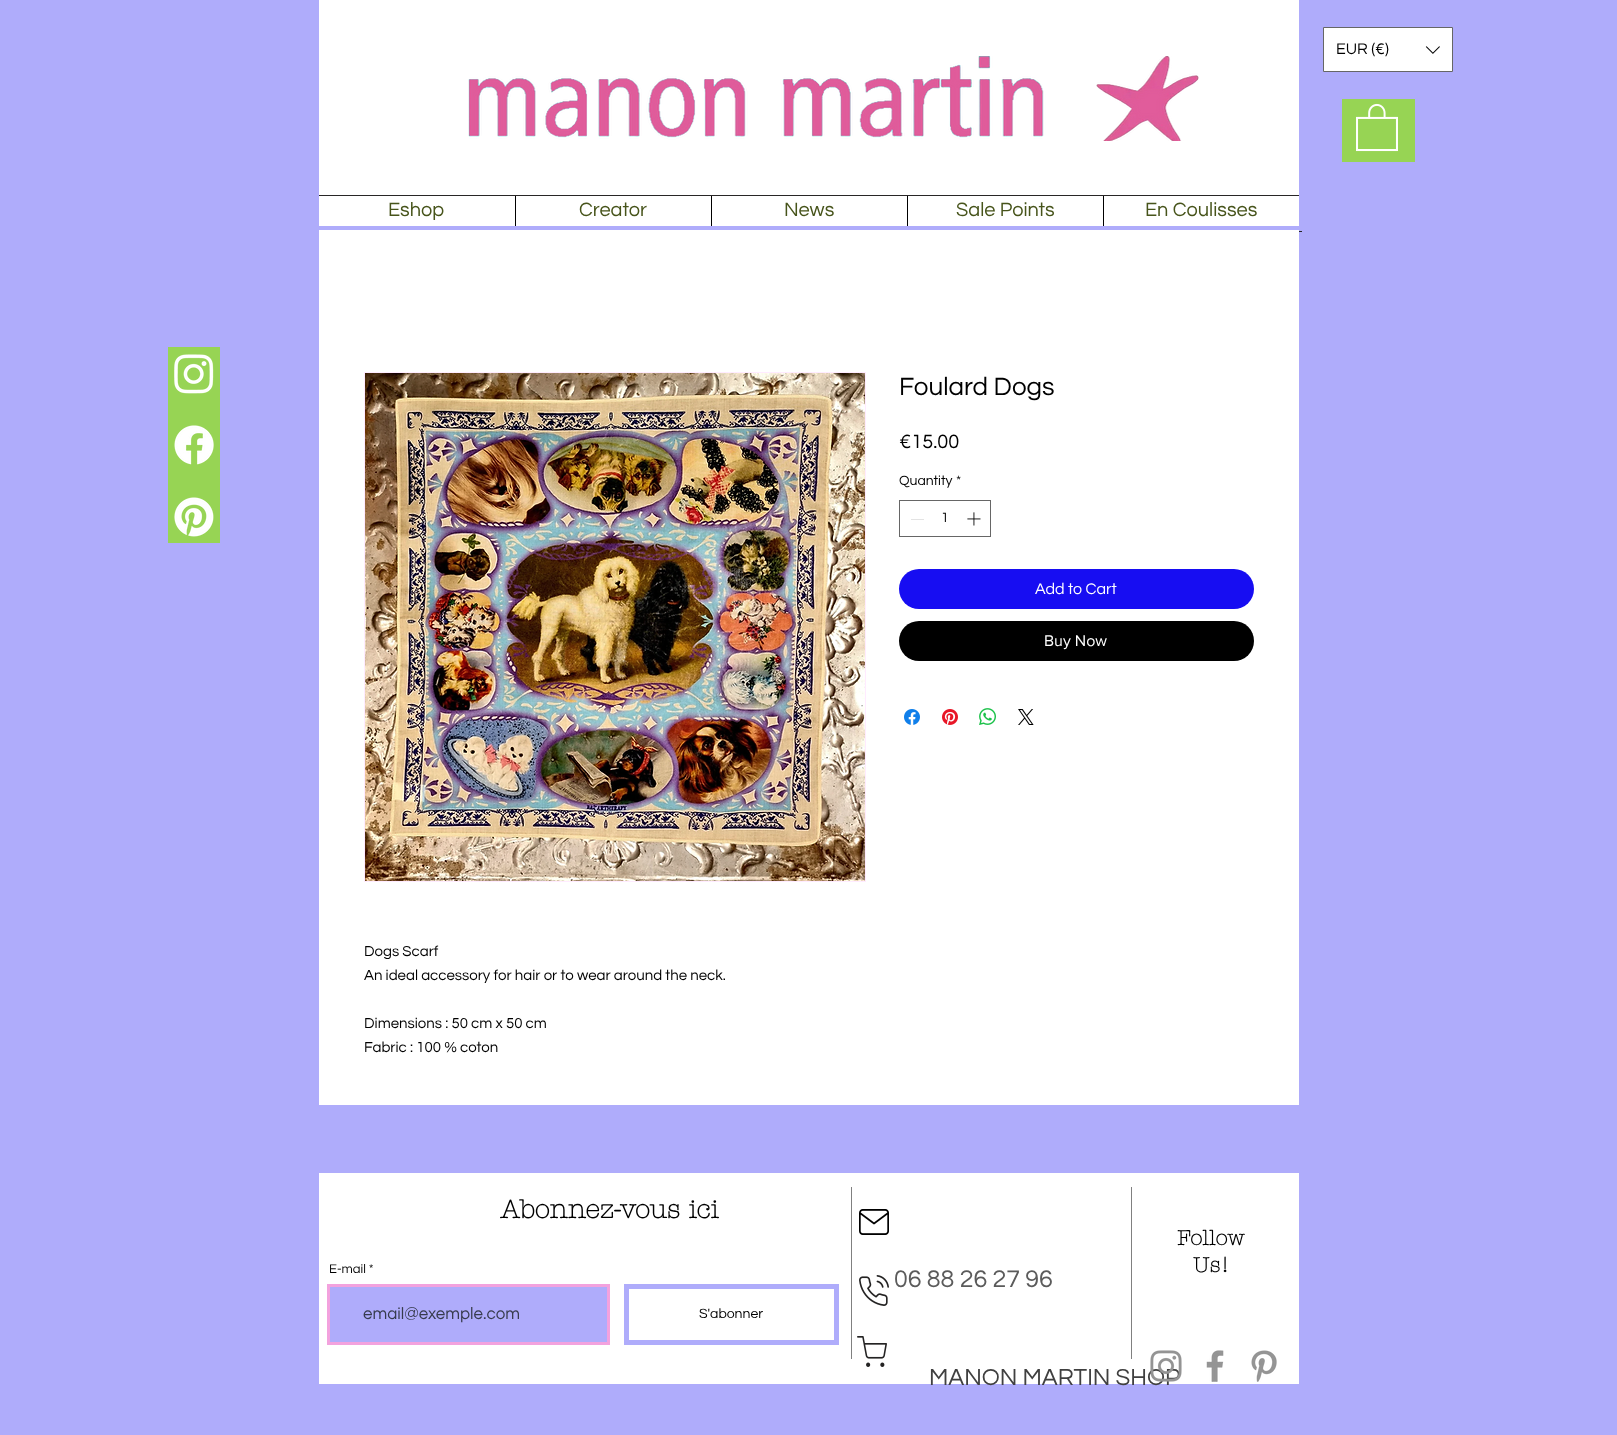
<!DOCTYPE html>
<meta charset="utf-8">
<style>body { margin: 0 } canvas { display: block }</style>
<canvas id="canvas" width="1617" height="1435"></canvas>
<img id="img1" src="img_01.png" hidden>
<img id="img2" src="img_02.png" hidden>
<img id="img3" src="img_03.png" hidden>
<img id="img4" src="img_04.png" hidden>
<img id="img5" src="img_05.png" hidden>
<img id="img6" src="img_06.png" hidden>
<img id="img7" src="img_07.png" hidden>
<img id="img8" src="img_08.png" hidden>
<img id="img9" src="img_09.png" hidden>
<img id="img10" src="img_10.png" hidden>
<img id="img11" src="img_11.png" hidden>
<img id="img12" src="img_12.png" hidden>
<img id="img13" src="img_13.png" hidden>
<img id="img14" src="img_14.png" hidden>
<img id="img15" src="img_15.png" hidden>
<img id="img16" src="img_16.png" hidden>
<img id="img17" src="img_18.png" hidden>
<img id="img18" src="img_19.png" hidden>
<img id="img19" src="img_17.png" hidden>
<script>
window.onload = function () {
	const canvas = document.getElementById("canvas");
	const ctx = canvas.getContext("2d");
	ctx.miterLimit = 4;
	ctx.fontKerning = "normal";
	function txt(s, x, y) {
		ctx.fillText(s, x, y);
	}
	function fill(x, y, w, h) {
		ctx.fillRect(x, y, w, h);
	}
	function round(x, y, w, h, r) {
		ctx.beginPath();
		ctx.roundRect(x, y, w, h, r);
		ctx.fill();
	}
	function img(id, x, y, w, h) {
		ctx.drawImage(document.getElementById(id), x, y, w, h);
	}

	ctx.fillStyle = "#AFACFB";
	fill(0, 0, 1617, 1435);
	img("img1", 319, 0, 980, 2);
	ctx.fillStyle = "#FFFFFF";
	fill(319, 2, 980, 193);
	ctx.beginPath();
	ctx.rect(1323.5, 27.5, 129, 44);
	ctx.fill();
	ctx.strokeStyle = "#666666";
	ctx.stroke();
	img("img2", 1425, 46, 15, 8);
	img("img3", 468, 56, 731, 85);
	ctx.fillStyle = "#97D454";
	fill(1342, 99, 73, 63);
	img("img4", 1356, 103, 42, 49);
	ctx.fillStyle = "#FFFFFF";
	fill(319, 196, 980, 30);
	ctx.fillStyle = "#000000";
	fill(515, 195, 1, 31);
	fill(711, 195, 1, 31);
	fill(907, 195, 1, 31);
	fill(1103, 195, 1, 31);
	ctx.fillStyle = "#282626";
	fill(319, 195, 980, 1);
	fill(1299, 231, 3, 1);
	ctx.fillStyle = "#97D454";
	fill(168, 347, 52, 196);
	img("img5", 174, 354, 40, 40);
	img("img6", 174, 425, 40, 40);
	img("img7", 174, 497, 40, 40);
	ctx.fillStyle = "#FFFFFF";
	fill(319, 230, 980, 875);
	ctx.strokeRect(899.5, 500.5, 91, 36);
	ctx.fillStyle = "#E3E3E3";
	fill(911, 519, 13, 1);
	img("img8", 967, 512, 14, 14);
	ctx.fillStyle = "#170DF2";
	round(899, 569, 355, 40, 20);
	ctx.fillStyle = "#000000";
	round(899, 621, 355, 40, 20);
	img("img9", 904, 709, 16, 16);
	img("img10", 942, 709, 16, 16);
	img("img11", 979, 708, 17, 17);
	img("img12", 1018, 709, 16, 16);
	ctx.strokeStyle = "#FFEBFF";
	ctx.strokeRect(364.5, 372.5, 501, 509);
	img("img13", 365, 373, 500, 508);
	ctx.fillStyle = "#FFFFFF";
	fill(319, 1173, 980, 211);
	ctx.fillStyle = "#808080";
	fill(851, 1187, 1, 172);
	img("img14", 859, 1209, 30, 26);
	ctx.fillStyle = "#AFACFB";
	ctx.beginPath();
	ctx.rect(328.5, 1285.5, 280, 58);
	ctx.fill();
	ctx.strokeStyle = "#F3A2DE";
	ctx.lineWidth = 3;
	ctx.stroke();
	img("img15", 859, 1275, 30, 31);
	ctx.strokeStyle = "#AFACFB";
	ctx.lineWidth = 5;
	ctx.strokeRect(626.5, 1286.5, 210, 56);
	img("img16", 857, 1336, 30, 31);
	ctx.fillStyle = "#808080";
	fill(1131, 1187, 1, 172);
	img("img17", 1206, 1350, 18, 32);
	img("img18", 1251, 1350, 26, 32);
	ctx.font = "16px Questrial";
	ctx.fillStyle = "#000000";
	txt("EUR (€)", 1336, 54);
	ctx.font = "20px Questrial";
	ctx.fillStyle = "#47541B";
	txt("Eshop", 388, 216);
	txt("Creator", 579, 216);
	txt("News", 784, 216);
	txt("Sale Points", 956, 216);
	txt("En Coulisses", 1145, 216);
	ctx.font = "26px Questrial";
	ctx.fillStyle = "#000000";
	txt("Foulard Dogs", 899, 395);
	ctx.font = "20px Questrial";
	txt("€15.00", 899, 448);
	ctx.font = "14px Questrial";
	txt("Quantity", 899, 485);
	txt("*", 956, 485);
	txt("1", 941, 522);
	ctx.font = "16px Questrial";
	ctx.fillStyle = "#FFFFFF";
	txt("Add to Cart", 1035, 594);
	ctx.font = "16px 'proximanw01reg'";
	txt("Buy Now", 1044, 646);
	ctx.font = "15px Questrial";
	ctx.fillStyle = "#000000";
	txt("Dogs Scarf", 364, 956);
	txt("An ideal accessory for hair or to wear around the neck.", 364, 980);
	txt("Dimensions : 50 cm x 50 cm", 364, 1028);
	txt("Fabric : 100 % coton", 364, 1052);
	ctx.font = "bold 26px 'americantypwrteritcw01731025'";
	txt("Abonnez-vous ici", 500, 1218);
	ctx.font = "13px Questrial";
	txt("E-mail *", 329, 1273);
	ctx.font = "17px Questrial";
	ctx.fillStyle = "#373B4D";
	txt("email@exemple.com", 363, 1319);
	ctx.font = "14px Questrial";
	ctx.fillStyle = "#000000";
	txt("S'abonner", 699, 1318);
	ctx.letterSpacing = "0.25px";
	ctx.font = "bold 21px 'americantypwrteritcw01731025'";
	txt("Follow", 1177, 1245);
	txt("Us!", 1193, 1272);
	ctx.letterSpacing = "0px";
	ctx.font = "25px Questrial";
	ctx.fillStyle = "#5B5B5B";
	txt("06 88 26 27 96", 894, 1287);
	ctx.font = "24px Questrial";
	ctx.fillStyle = "#404040";
	txt("MANON MARTIN SHOP", 929, 1385);
	img("img19", 1150, 1350, 32, 32);
};
</script>
